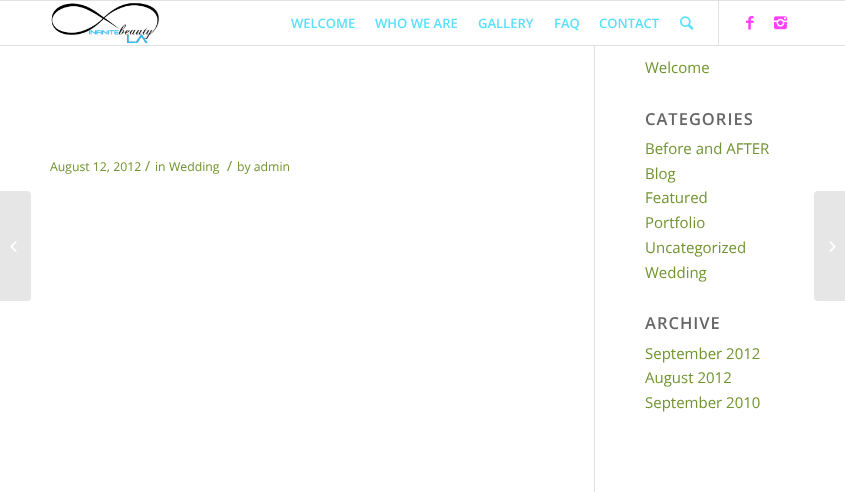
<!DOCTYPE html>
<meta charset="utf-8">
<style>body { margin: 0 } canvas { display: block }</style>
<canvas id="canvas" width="845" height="492"></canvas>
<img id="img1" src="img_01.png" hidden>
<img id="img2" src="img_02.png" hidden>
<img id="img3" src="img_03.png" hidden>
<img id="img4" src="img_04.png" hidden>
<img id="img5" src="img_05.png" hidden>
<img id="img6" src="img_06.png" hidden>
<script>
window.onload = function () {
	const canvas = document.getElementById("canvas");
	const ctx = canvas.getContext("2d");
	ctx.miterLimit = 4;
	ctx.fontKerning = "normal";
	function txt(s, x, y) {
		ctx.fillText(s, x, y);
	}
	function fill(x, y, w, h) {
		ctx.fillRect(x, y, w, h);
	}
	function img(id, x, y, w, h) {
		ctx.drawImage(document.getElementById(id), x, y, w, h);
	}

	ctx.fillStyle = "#FFFFFF";
	fill(0, 0, 845, 492);
	ctx.fillStyle = "#E1E1E1";
	fill(0, 0, 845, 1);
	fill(0, 45, 845, 1);
	img("img1", 51, 3, 109, 41);
	fill(718, 1, 1, 44);
	img("img2", 680, 16, 14, 14);
	img("img3", 746, 16, 8, 14);
	img("img4", 774, 16, 13, 14);
	ctx.fillStyle = "#E6E6E6";
	ctx.beginPath();
	ctx.roundRect(0, 191, 31, 110, [0, 4, 4, 0]);
	ctx.fill();
	img("img5", 10, 241, 7, 11);
	ctx.fillStyle = "#E1E1E1";
	fill(594, 46, 1, 446);
	ctx.fillStyle = "#E6E6E6";
	ctx.beginPath();
	ctx.roundRect(814, 191, 31, 110, [4, 0, 0, 4]);
	ctx.fill();
	img("img6", 829, 241, 7, 11);
	ctx.font = "600 13px Open Sans";
	ctx.fillStyle = "#59E0FB";
	txt("WELCOME", 291, 28);
	txt("WHO WE ARE", 375, 28);
	txt("GALLERY", 478, 28);
	txt("FAQ", 554, 28);
	txt("CONTACT", 599, 28);
	ctx.font = "12.25px Open Sans";
	ctx.fillStyle = "#719430";
	txt("August 12, 2012", 50, 171);
	ctx.font = "14px Open Sans";
	txt("/", 145, 171);
	ctx.font = "12.25px Open Sans";
	txt("in", 155, 171);
	ctx.save();
	ctx.beginPath();
	ctx.rect(50, 162, 544, 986);
	ctx.clip();
	txt("Wedding", 169, 171);
	ctx.restore();
	ctx.font = "14px Open Sans";
	txt("/", 227, 171);
	ctx.font = "12.25px Open Sans";
	txt("by admin", 237, 171);
	ctx.font = "15px Open Sans";
	txt("Welcome", 645, 73);
	ctx.letterSpacing = "1px";
	ctx.font = "600 16.5px Open Sans";
	ctx.fillStyle = "#666666";
	txt("CATEGORIES", 645, 125);
	ctx.letterSpacing = "0px";
	ctx.font = "15px Open Sans";
	ctx.fillStyle = "#719430";
	txt("Before and AFTER", 645, 154);
	txt("Blog", 645, 179);
	txt("Featured", 645, 203);
	txt("Portfolio", 645, 228);
	txt("Uncategorized", 645, 253);
	txt("Wedding", 645, 278);
	ctx.letterSpacing = "1px";
	ctx.font = "600 16.5px Open Sans";
	ctx.fillStyle = "#666666";
	txt("ARCHIVE", 645, 329);
	ctx.letterSpacing = "0px";
	ctx.font = "15px Open Sans";
	ctx.fillStyle = "#719430";
	txt("September 2012", 645, 359);
	txt("August 2012", 645, 383);
	txt("September 2010", 645, 408);
};
</script>
